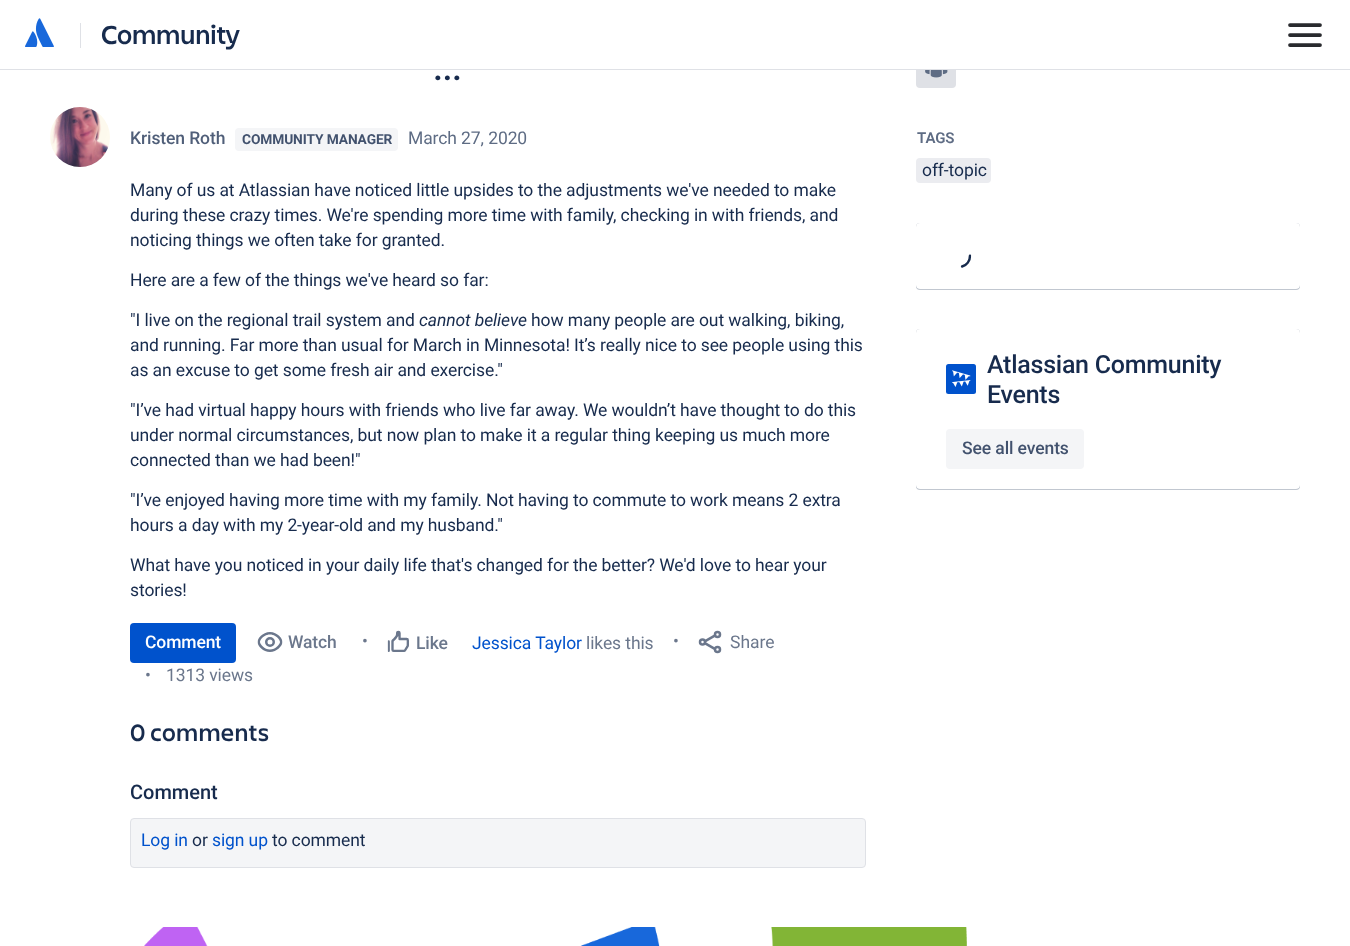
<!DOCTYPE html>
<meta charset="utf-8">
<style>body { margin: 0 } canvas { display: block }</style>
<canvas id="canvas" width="1350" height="946"></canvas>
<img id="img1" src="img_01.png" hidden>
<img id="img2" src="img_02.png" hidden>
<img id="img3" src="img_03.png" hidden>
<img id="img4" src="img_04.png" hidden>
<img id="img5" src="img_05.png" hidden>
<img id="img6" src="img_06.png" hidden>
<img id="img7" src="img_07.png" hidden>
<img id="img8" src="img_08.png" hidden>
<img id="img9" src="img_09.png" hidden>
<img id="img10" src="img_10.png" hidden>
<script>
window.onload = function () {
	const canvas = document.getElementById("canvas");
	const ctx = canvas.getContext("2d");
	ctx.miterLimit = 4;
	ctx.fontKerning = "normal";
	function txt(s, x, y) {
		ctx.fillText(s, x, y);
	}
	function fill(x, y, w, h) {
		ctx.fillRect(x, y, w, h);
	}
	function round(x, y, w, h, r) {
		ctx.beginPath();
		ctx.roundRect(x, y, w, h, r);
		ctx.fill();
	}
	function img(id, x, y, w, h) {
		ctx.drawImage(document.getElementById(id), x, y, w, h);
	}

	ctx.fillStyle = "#FFFFFF";
	fill(0, 0, 1350, 946);
	ctx.fillStyle = "#DFE1E6";
	round(916, 48, 40, 40, 4);
	ctx.fillStyle = "#FFFFFF";
	fill(916, 48, 40, 21);
	ctx.fillStyle = "#DFE1E6";
	fill(0, 69, 1350, 1);
	img("img1", 25, 18, 29, 29);
	fill(80, 23, 1, 25);
	img("img2", 1288, 23, 34, 24);
	img("img3", 50, 107, 60, 60);
	ctx.fillStyle = "#F4F5F7";
	round(235, 128, 163, 23, 4);
	ctx.fillStyle = "#0052CC";
	round(130, 623, 106, 40, 4);
	img("img4", 257, 632, 26, 20);
	img("img5", 387, 630, 22, 22);
	img("img6", 698, 630, 24, 24);
	ctx.fillStyle = "#F4F5F7";
	ctx.beginPath();
	ctx.roundRect(130.5, 818.5, 735, 49, 3.5);
	ctx.fill();
	ctx.strokeStyle = "#DFE1E6";
	ctx.stroke();
	img("img7", 925, 70, 23, 8);
	ctx.fillStyle = "#EBECF0";
	round(916, 158, 75, 25, 4);
	ctx.fillStyle = "rgba(9, 30, 66, 0.31)";
	ctx.filter = "blur(0.5px)";
	ctx.beginPath();
	ctx.roundRect(916, 223, 384, 66, 4);
	ctx.fill();
	ctx.filter = "none";
	ctx.fillStyle = "rgba(9, 30, 66, 0.25)";
	ctx.filter = "blur(0.5px)";
	ctx.beginPath();
	ctx.roundRect(916, 224, 384, 66, 4);
	ctx.fill();
	ctx.filter = "none";
	ctx.fillStyle = "#FFFFFF";
	round(916, 223, 384, 66, 4);
	img("img8", 960, 254, 12, 14);
	ctx.fillStyle = "rgba(9, 30, 66, 0.31)";
	ctx.filter = "blur(0.5px)";
	ctx.beginPath();
	ctx.roundRect(916, 329, 384, 160, 4);
	ctx.fill();
	ctx.filter = "none";
	ctx.fillStyle = "rgba(9, 30, 66, 0.25)";
	ctx.filter = "blur(0.5px)";
	ctx.beginPath();
	ctx.roundRect(916, 330, 384, 160, 4);
	ctx.fill();
	ctx.filter = "none";
	ctx.fillStyle = "#FFFFFF";
	round(916, 329, 384, 160, 4);
	ctx.fillStyle = "#0052CC";
	round(946, 364, 30, 30, 2.5);
	img("img9", 952, 370, 19, 17);
	ctx.fillStyle = "#F4F5F7";
	round(946, 429, 138, 40, 4);
	img("img10", 144, 927, 823, 19);
	ctx.letterSpacing = "-0.1px";
	ctx.font = "600 27.5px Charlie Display";
	ctx.fillStyle = "#172B4D";
	txt("Community", 101, 44);
	ctx.letterSpacing = "-0.5px";
	ctx.font = "500 36px Roboto";
	txt("...", 433, 80);
	ctx.letterSpacing = "-0.1px";
	ctx.font = "500 17.5px Roboto";
	ctx.fillStyle = "#505F79";
	txt("Kristen Roth", 130, 144);
	ctx.font = "bold 13.75px Roboto";
	ctx.fillStyle = "#42526E";
	txt("COMMUNITY MANAGER", 242, 144);
	ctx.font = "17.5px Roboto";
	ctx.fillStyle = "#5E6C84";
	txt("March 27, 2020", 408, 144);
	ctx.fillStyle = "#172B4D";
	txt("Many of us at Atlassian have noticed little upsides to the adjustments we've needed to make", 130, 196);
	txt("during these crazy times. We're spending more time with family, checking in with friends, and", 130, 221);
	txt("noticing things we often take for granted.", 130, 246);
	txt("Here are a few of the things we've heard so far:", 130, 286);
	txt("\"I live on the regional trail system and", 130, 326);
	ctx.font = "italic 17.5px Roboto";
	txt("cannot believe", 419, 326);
	ctx.font = "17.5px Roboto";
	txt("how many people are out walking, biking,", 531, 326);
	txt("and running. Far more than usual for March in Minnesota! It’s really nice to see people using this", 130, 351);
	txt("as an excuse to get some fresh air and exercise.\"", 130, 376);
	txt("\"I’ve had virtual happy hours with friends who live far away. We wouldn’t have thought to do this", 130, 416);
	txt("under normal circumstances, but now plan to make it a regular thing keeping us much more", 130, 441);
	txt("connected than we had been!\"", 130, 466);
	txt("\"I’ve enjoyed having more time with my family. Not having to commute to work means 2 extra", 130, 506);
	txt("hours a day with my 2-year-old and my husband.\"", 130, 531);
	txt("What have you noticed in your daily life that's changed for the better? We'd love to hear your", 130, 571);
	txt("stories!", 130, 596);
	ctx.font = "500 17.5px Roboto";
	ctx.fillStyle = "#FFFFFF";
	txt("Comment", 145, 648);
	ctx.fillStyle = "#6B778C";
	txt("Watch", 288, 648);
	ctx.font = "17.5px Roboto";
	txt("•", 362, 647);
	ctx.font = "500 17.5px Roboto";
	txt("Like", 416, 649);
	ctx.font = "17.5px Roboto";
	ctx.fillStyle = "#0052CC";
	txt("Jessica Taylor", 472, 649);
	ctx.fillStyle = "#6B778C";
	txt("likes this", 586, 649);
	txt("•", 673, 647);
	ctx.letterSpacing = "0px";
	txt("Share", 730, 648);
	ctx.letterSpacing = "-0.1px";
	txt("•", 145, 681);
	txt("1313 views", 166, 681);
	ctx.letterSpacing = "0.4px";
	ctx.font = "600 25px Charlie Display";
	ctx.fillStyle = "#172B4D";
	txt("0 comments", 130, 741);
	ctx.letterSpacing = "0px";
	ctx.font = "500 20px Roboto";
	txt("Comment", 130, 799);
	ctx.letterSpacing = "-0.1px";
	ctx.font = "17.5px Roboto";
	ctx.fillStyle = "#0052CC";
	txt("Log in", 141, 846);
	ctx.fillStyle = "#172B4D";
	txt("or", 192, 846);
	ctx.fillStyle = "#0052CC";
	txt("sign up", 212, 846);
	ctx.fillStyle = "#172B4D";
	txt("to comment", 272, 846);
	ctx.font = "600 15px Roboto";
	ctx.fillStyle = "#5E6C84";
	txt("TAGS", 917, 143);
	ctx.font = "17.5px Roboto";
	ctx.fillStyle = "#172B4D";
	txt("off-topic", 922, 176);
	ctx.letterSpacing = "-0.25px";
	ctx.font = "500 25px Roboto";
	txt("Atlassian Community", 987, 373);
	txt("Events", 987, 403);
	ctx.letterSpacing = "-0.1px";
	ctx.font = "500 17.5px Roboto";
	ctx.fillStyle = "#42526E";
	txt("See all events", 962, 454);
};
</script>
